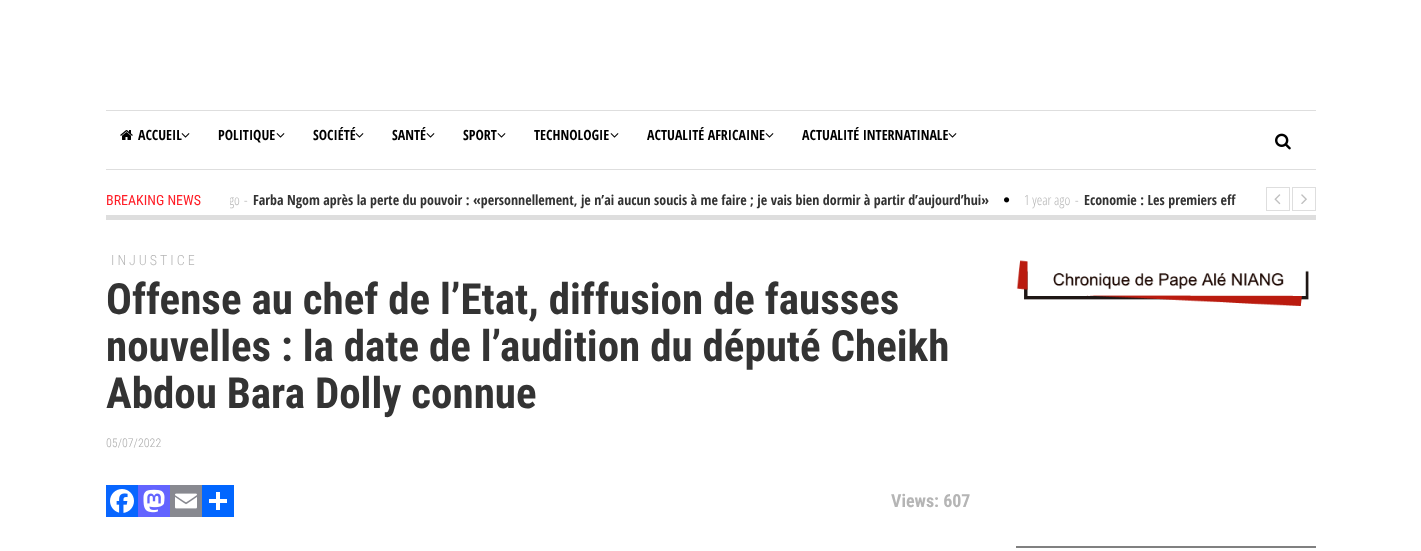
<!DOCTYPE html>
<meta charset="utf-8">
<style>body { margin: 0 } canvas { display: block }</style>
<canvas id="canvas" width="1421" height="551"></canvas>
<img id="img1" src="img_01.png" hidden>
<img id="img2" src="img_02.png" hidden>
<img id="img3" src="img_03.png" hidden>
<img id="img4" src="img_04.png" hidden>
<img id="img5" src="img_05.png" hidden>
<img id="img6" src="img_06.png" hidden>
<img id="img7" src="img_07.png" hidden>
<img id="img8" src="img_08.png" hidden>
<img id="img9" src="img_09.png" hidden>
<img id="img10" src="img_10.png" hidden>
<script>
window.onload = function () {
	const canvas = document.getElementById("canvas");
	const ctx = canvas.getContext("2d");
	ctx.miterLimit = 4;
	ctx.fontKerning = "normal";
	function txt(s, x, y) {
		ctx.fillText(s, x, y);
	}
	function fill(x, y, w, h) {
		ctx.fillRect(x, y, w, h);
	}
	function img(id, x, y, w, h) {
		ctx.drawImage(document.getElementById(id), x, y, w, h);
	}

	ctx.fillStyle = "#FFFFFF";
	fill(0, 0, 1421, 551);
	ctx.fillStyle = "#DEDEDE";
	fill(106, 110, 1210, 1);
	fill(106, 169, 1210, 1);
	img("img1", 120, 130, 13, 10);
	img("img2", 276, 133, 9, 5);
	img("img2", 610, 133, 9, 5);
	img("img2", 765, 133, 9, 5);
	img("img2", 948, 133, 9, 5);
	img("img3", 1275, 133, 16, 17);
	fill(106, 215, 1210, 5);
	img("img4", 1004, 197, 6, 6);
	ctx.strokeStyle = "#DEDEDE";
	ctx.strokeRect(1266.5, 187.5, 23, 23);
	img("img5", 1274, 194, 7, 11);
	ctx.strokeRect(1292.5, 187.5, 23, 23);
	img("img6", 1301, 194, 6, 10);
	ctx.fillStyle = "#0866FF";
	fill(106, 485, 32, 32);
	img("img7", 110, 489, 24, 24);
	ctx.fillStyle = "#6364FF";
	fill(138, 485, 32, 32);
	img("img8", 143, 489, 22, 24);
	ctx.fillStyle = "#888990";
	fill(170, 485, 32, 32);
	img("img9", 175, 493, 22, 16);
	ctx.fillStyle = "#0166FF";
	fill(202, 485, 32, 32);
	ctx.fillStyle = "#FFFFFF";
	fill(216, 492, 4, 18);
	fill(209, 499, 18, 4);
	img("img10", 1016, 260, 293, 46);
	ctx.fillStyle = "#808080";
	fill(1016, 546, 300, 2);
	ctx.font = "bold 14px Open Sans Condensed";
	ctx.fillStyle = "#000000";
	txt("ACCUEIL", 138, 140);
	img("img2", 181, 133, 9, 5);
	txt("POLITIQUE", 218, 140);
	txt("SOCIÉTÉ", 313, 140);
	img("img2", 355, 133, 9, 5);
	txt("SANTÉ", 392, 140);
	img("img2", 426, 133, 9, 5);
	txt("SPORT", 463, 140);
	img("img2", 497, 133, 9, 5);
	txt("TECHNOLOGIE", 534, 140);
	txt("ACTUALITÉ AFRICAINE", 647, 140);
	txt("ACTUALITÉ INTERNATINALE", 802, 140);
	ctx.font = "14px Roboto Condensed";
	ctx.fillStyle = "#FF1D26";
	txt("BREAKING NEWS", 106, 205);
	ctx.font = "300 14px Open Sans Condensed";
	ctx.fillStyle = "#B5B5B5";
	txt("go", 229, 205);
	ctx.fillStyle = "#FFFFFF";
	fill(228, 198, 2, 11);
	ctx.fillStyle = "#B5B5B5";
	txt("-", 244, 205);
	ctx.font = "bold 14px Open Sans Condensed";
	ctx.fillStyle = "#333333";
	txt("Farba Ngom après la perte du pouvoir : «personnellement, je n’ai aucun soucis à me faire ; je vais bien dormir à partir d’aujourd’hui»", 253, 205);
	ctx.font = "300 14px Open Sans Condensed";
	ctx.fillStyle = "#B5B5B5";
	txt("1 year ago", 1024, 205);
	txt("-", 1075, 205);
	ctx.font = "bold 14px Open Sans Condensed";
	ctx.fillStyle = "#333333";
	txt("Economie : Les premiers eff", 1084, 205);
	ctx.letterSpacing = "3px";
	ctx.font = "300 14px Roboto Condensed";
	ctx.fillStyle = "#B5B5B5";
	txt("INJUSTICE", 111, 265);
	ctx.letterSpacing = "0px";
	ctx.font = "bold 43px Roboto Condensed";
	ctx.fillStyle = "#333333";
	txt("Offense au chef de l’Etat, diffusion de fausses", 106, 314);
	txt("nouvelles : la date de l’audition du député Cheikh", 106, 361);
	txt("Abdou Bara Dolly connue", 106, 408);
	ctx.font = "300 12px Roboto Condensed";
	ctx.fillStyle = "#ABABAB";
	txt("05/07/2022", 106, 447);
	ctx.font = "bold 18px Roboto Condensed";
	ctx.fillStyle = "#B5B5B5";
	txt("Views: 607", 891, 507);
};
</script>
